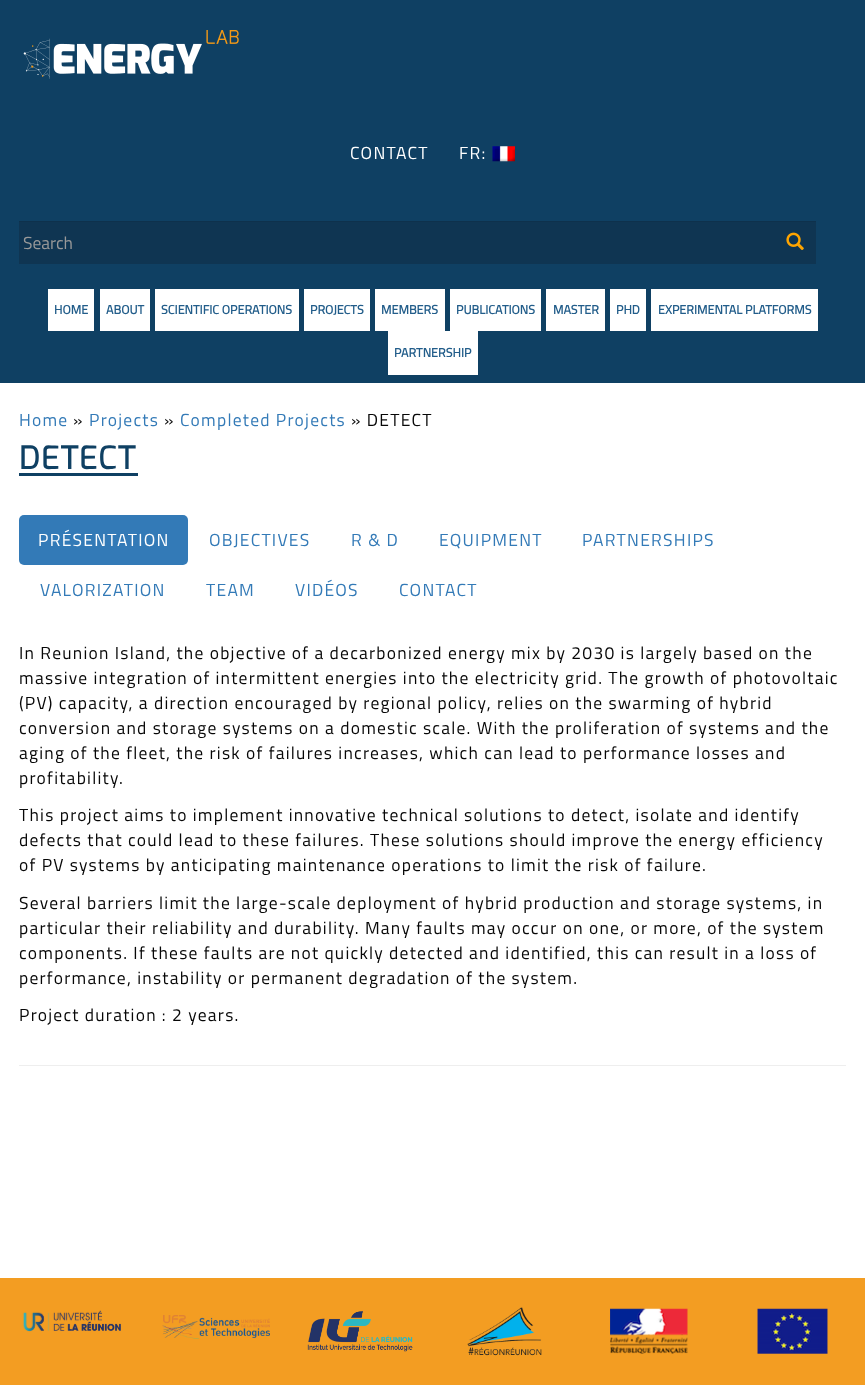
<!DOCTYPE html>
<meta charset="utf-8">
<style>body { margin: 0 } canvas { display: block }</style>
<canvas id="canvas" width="865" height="1385"></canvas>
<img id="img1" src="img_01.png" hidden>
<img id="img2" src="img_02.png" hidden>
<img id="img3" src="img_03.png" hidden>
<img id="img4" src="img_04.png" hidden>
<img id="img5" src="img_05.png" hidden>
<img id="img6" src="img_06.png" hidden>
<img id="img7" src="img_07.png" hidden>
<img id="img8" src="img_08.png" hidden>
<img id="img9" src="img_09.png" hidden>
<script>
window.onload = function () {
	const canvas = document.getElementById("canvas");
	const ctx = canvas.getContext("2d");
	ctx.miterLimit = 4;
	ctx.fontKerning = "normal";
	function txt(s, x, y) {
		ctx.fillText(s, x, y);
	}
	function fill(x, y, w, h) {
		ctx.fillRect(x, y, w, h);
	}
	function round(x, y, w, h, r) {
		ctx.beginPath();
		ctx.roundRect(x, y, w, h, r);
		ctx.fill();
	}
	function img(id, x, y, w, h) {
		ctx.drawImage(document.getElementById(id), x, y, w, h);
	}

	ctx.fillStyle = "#FFFFFF";
	fill(0, 0, 865, 1385);
	ctx.fillStyle = "#0F4063";
	fill(0, 0, 865, 383);
	img("img1", 23, 30, 216, 49);
	img("img2", 492, 146, 23, 16);
	ctx.fillStyle = "#0F3552";
	fill(19, 222, 797, 42);
	ctx.fillStyle = "#0E314C";
	fill(19, 221, 797, 1);
	img("img3", 786, 232, 18, 18);
	ctx.fillStyle = "#FFFFFF";
	fill(48, 289, 46, 42);
	fill(100, 289, 50, 42);
	fill(155, 289, 144, 42);
	fill(304, 289, 66, 42);
	fill(375, 289, 70, 42);
	fill(450, 289, 91, 42);
	fill(546, 289, 59, 42);
	fill(610, 289, 36, 42);
	fill(651, 289, 167, 42);
	fill(388, 331, 90, 44);
	ctx.fillStyle = "#0F4063";
	fill(19, 473, 119, 3);
	ctx.fillStyle = "#337AB7";
	round(19, 515, 169, 50, 5);
	ctx.fillStyle = "#EEEEEE";
	fill(19, 1065, 827, 1);
	ctx.fillStyle = "#F39D22";
	fill(0, 1278, 865, 107);
	img("img4", 22, 1310, 99, 22);
	img("img5", 162, 1315, 108, 24);
	img("img6", 307, 1311, 106, 41);
	img("img7", 467, 1307, 75, 49);
	img("img8", 610, 1308, 78, 46);
	img("img9", 757, 1308, 71, 46);
	ctx.letterSpacing = "1.25px";
	ctx.font = "17.5px Titillium Web";
	ctx.fillStyle = "#FFFFFF";
	txt("CONTACT", 350, 159);
	txt("FR:", 459, 159);
	ctx.letterSpacing = "0px";
	ctx.fillStyle = "#999999";
	txt("Search", 23, 249);
	ctx.font = "bold 12.5px Titillium Web";
	ctx.fillStyle = "#225D8A";
	txt("HOME", 54, 314);
	txt("ABOUT", 106, 314);
	txt("SCIENTIFIC OPERATIONS", 161, 314);
	txt("PROJECTS", 310, 314);
	txt("MEMBERS", 381, 314);
	txt("PUBLICATIONS", 456, 314);
	txt("MASTER", 553, 314);
	txt("PHD", 616, 314);
	txt("EXPERIMENTAL PLATFORMS", 658, 314);
	txt("PARTNERSHIP", 394, 357);
	ctx.letterSpacing = "1.25px";
	ctx.font = "17.5px Titillium Web";
	ctx.fillStyle = "#337AB7";
	txt("Home", 19, 426);
	ctx.fillStyle = "#070707";
	txt("»", 73, 426);
	ctx.fillStyle = "#337AB7";
	txt("Projects", 89, 426);
	ctx.fillStyle = "#070707";
	txt("»", 164, 426);
	ctx.fillStyle = "#337AB7";
	txt("Completed Projects", 180, 426);
	ctx.fillStyle = "#070707";
	txt("» DETECT", 351, 426);
	ctx.font = "bold 31px Exo";
	ctx.fillStyle = "#0F4063";
	txt("DETECT", 19, 469);
	ctx.font = "17.5px Titillium Web";
	ctx.fillStyle = "#FFFFFF";
	txt("PRÉSENTATION", 38, 546);
	ctx.fillStyle = "#337AB7";
	txt("OBJECTIVES", 209, 546);
	txt("R & D", 351, 546);
	txt("EQUIPMENT", 439, 546);
	txt("PARTNERSHIPS", 582, 546);
	txt("VALORIZATION", 40, 596);
	txt("TEAM", 206, 596);
	txt("VIDÉOS", 295, 596);
	txt("CONTACT", 399, 596);
	ctx.fillStyle = "#070707";
	txt("In Reunion Island, the objective of a decarbonized energy mix by 2030 is largely based on the", 19, 659);
	txt("massive integration of intermittent energies into the electricity grid. The growth of photovoltaic", 19, 684);
	txt("(PV) capacity, a direction encouraged by regional policy, relies on the swarming of hybrid", 19, 709);
	txt("conversion and storage systems on a domestic scale. With the proliferation of systems and the", 19, 734);
	txt("aging of the fleet, the risk of failures increases, which can lead to performance losses and", 19, 759);
	txt("profitability.", 19, 784);
	txt("This project aims to implement innovative technical solutions to detect, isolate and identify", 19, 821);
	txt("defects that could lead to these failures. These solutions should improve the energy efficiency", 19, 846);
	txt("of PV systems by anticipating maintenance operations to limit the risk of failure.", 19, 871);
	txt("Several barriers limit the large-scale deployment of hybrid production and storage systems, in", 19, 909);
	txt("particular their reliability and durability. Many faults may occur on one, or more, of the system", 19, 934);
	txt("components. If these faults are not quickly detected and identified, this can result in a loss of", 19, 959);
	txt("performance, instability or permanent degradation of the system.", 19, 984);
	txt("Project duration : 2 years.", 19, 1021);
};
</script>
